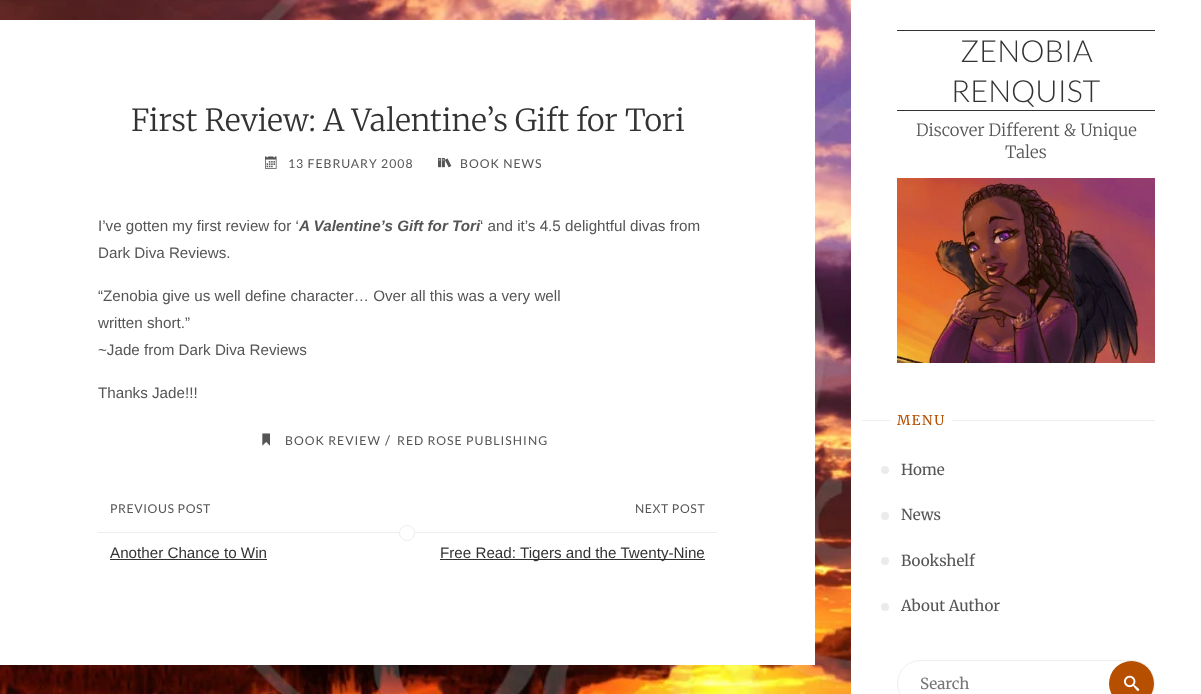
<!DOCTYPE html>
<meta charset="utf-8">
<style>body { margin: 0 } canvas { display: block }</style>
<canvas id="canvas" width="1201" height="694"></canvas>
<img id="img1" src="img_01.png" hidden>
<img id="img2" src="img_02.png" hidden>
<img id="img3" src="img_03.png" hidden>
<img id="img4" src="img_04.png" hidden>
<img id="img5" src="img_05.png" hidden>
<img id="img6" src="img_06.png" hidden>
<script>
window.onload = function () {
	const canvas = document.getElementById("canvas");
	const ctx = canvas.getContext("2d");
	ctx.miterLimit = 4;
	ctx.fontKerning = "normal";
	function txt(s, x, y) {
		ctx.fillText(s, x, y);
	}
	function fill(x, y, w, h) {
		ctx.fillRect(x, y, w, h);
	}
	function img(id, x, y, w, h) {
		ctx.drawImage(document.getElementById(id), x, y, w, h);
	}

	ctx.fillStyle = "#FFFFFF";
	fill(0, 0, 1201, 694);
	img("img1", 0, 0, 851, 694);
	fill(0, 20, 815, 645);
	img("img2", 265, 156, 12, 13);
	img("img3", 438, 158, 14, 10);
	img("img4", 262, 433, 8, 13);
	ctx.fillStyle = "#EEEEEE";
	fill(98, 532, 619, 1);
	ctx.fillStyle = "#FFFFFF";
	ctx.beginPath();
	ctx.roundRect(399, 525, 8, 16, [8, 0, 0, 8]);
	ctx.fill();
	ctx.save();
	ctx.beginPath();
	ctx.rect(98, 498, 309, 76);
	ctx.clip();
	ctx.beginPath();
	ctx.arc(407, 533, 7.5, 0, Math.PI * 2);
	ctx.strokeStyle = "#EEEEEE";
	ctx.stroke();
	ctx.restore();
	ctx.fillStyle = "#333333";
	fill(110, 559, 157, 1);
	ctx.fillStyle = "#FFFFFF";
	ctx.beginPath();
	ctx.roundRect(407, 525, 8, 16, [0, 8, 8, 0]);
	ctx.fill();
	ctx.save();
	ctx.beginPath();
	ctx.rect(407, 498, 310, 76);
	ctx.clip();
	ctx.beginPath();
	ctx.arc(407, 533, 7.5, 0, Math.PI * 2);
	ctx.strokeStyle = "#EEEEEE";
	ctx.stroke();
	ctx.restore();
	ctx.fillStyle = "#333333";
	fill(440, 559, 265, 1);
	fill(897, 30, 258, 1);
	fill(897, 110, 258, 1);
	img("img5", 897, 178, 258, 185);
	ctx.fillStyle = "#EEEEEE";
	fill(862, 420, 293, 1);
	ctx.fillStyle = "#FFFFFF";
	fill(890, 420, 62, 1);
	ctx.fillStyle = "#EBEBEB";
	ctx.beginPath();
	ctx.arc(885, 470, 4, 0, Math.PI * 2);
	ctx.fill();
	ctx.beginPath();
	ctx.arc(885, 516, 4, 0, Math.PI * 2);
	ctx.fill();
	ctx.beginPath();
	ctx.arc(885, 561, 4, 0, Math.PI * 2);
	ctx.fill();
	ctx.beginPath();
	ctx.arc(885, 607, 4, 0, Math.PI * 2);
	ctx.fill();
	ctx.beginPath();
	ctx.roundRect(897.5, 660.5, 257, 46, 23);
	ctx.strokeStyle = "#EEEEEE";
	ctx.stroke();
	ctx.fillStyle = "#B74F00";
	ctx.beginPath();
	ctx.arc(1131.5, 683.5, 22.5, 0, Math.PI * 2);
	ctx.fill();
	img("img6", 1124, 675, 16, 16);
	ctx.font = "300 30.4px Merriweather";
	ctx.fillStyle = "#333333";
	txt("First Review: A Valentine’s Gift for Tori", 131, 131);
	ctx.letterSpacing = "1px";
	ctx.font = "12.25px Lato";
	ctx.fillStyle = "#555555";
	txt("13 FEBRUARY 2008", 288, 168);
	txt("BOOK NEWS", 460, 168);
	ctx.letterSpacing = "0px";
	ctx.font = "15.2px Liberation Sans";
	txt("I’ve gotten my first review for ‘", 98, 231);
	ctx.font = "italic bold 15.2px Liberation Sans";
	txt("A Valentine’s Gift for Tori", 299, 231);
	ctx.font = "15.2px Liberation Sans";
	txt("‘ and it’s 4.5 delightful divas from", 480, 231);
	txt("Dark Diva Reviews.", 98, 258);
	txt("“Zenobia give us well define character… Over all this was a very well", 98, 301);
	txt("written short.”", 98, 328);
	txt("~Jade from Dark Diva Reviews", 98, 355);
	txt("Thanks Jade!!!", 98, 398);
	ctx.letterSpacing = "1px";
	ctx.font = "12.25px Lato";
	txt("BOOK REVIEW", 285, 445);
	ctx.font = "13.5px Lato";
	txt("/", 385, 445);
	ctx.font = "12.25px Lato";
	txt("RED ROSE PUBLISHING", 397, 445);
	ctx.letterSpacing = "0.6px";
	txt("PREVIOUS POST", 110, 513);
	ctx.letterSpacing = "0px";
	ctx.font = "15.2px Liberation Sans";
	ctx.fillStyle = "#333333";
	txt("Another Chance to Win", 110, 558);
	ctx.letterSpacing = "0.6px";
	ctx.font = "12.25px Lato";
	ctx.fillStyle = "#555555";
	txt("NEXT POST", 635, 513);
	ctx.letterSpacing = "0px";
	ctx.font = "15.2px Liberation Sans";
	ctx.fillStyle = "#333333";
	txt("Free Read: Tigers and the Twenty-Nine", 440, 558);
	ctx.font = "300 30.4px Lato";
	txt("ZENOBIA", 960, 62);
	txt("RENQUIST", 951, 102);
	ctx.font = "300 16.75px Merriweather";
	ctx.fillStyle = "#555555";
	txt("Discover Different & Unique", 916, 136);
	txt("Tales", 1005, 158);
	ctx.letterSpacing = "1.5px";
	ctx.font = "13.5px Merriweather";
	ctx.fillStyle = "#B74F00";
	txt("MENU", 897, 425);
	ctx.letterSpacing = "0px";
	ctx.font = "15.2px Merriweather";
	ctx.fillStyle = "#555555";
	txt("Home", 901, 475);
	txt("News", 901, 520);
	txt("Bookshelf", 901, 566);
	txt("About Author", 901, 611);
	ctx.fillStyle = "#757575";
	txt("Search", 920, 689);
};
</script>
